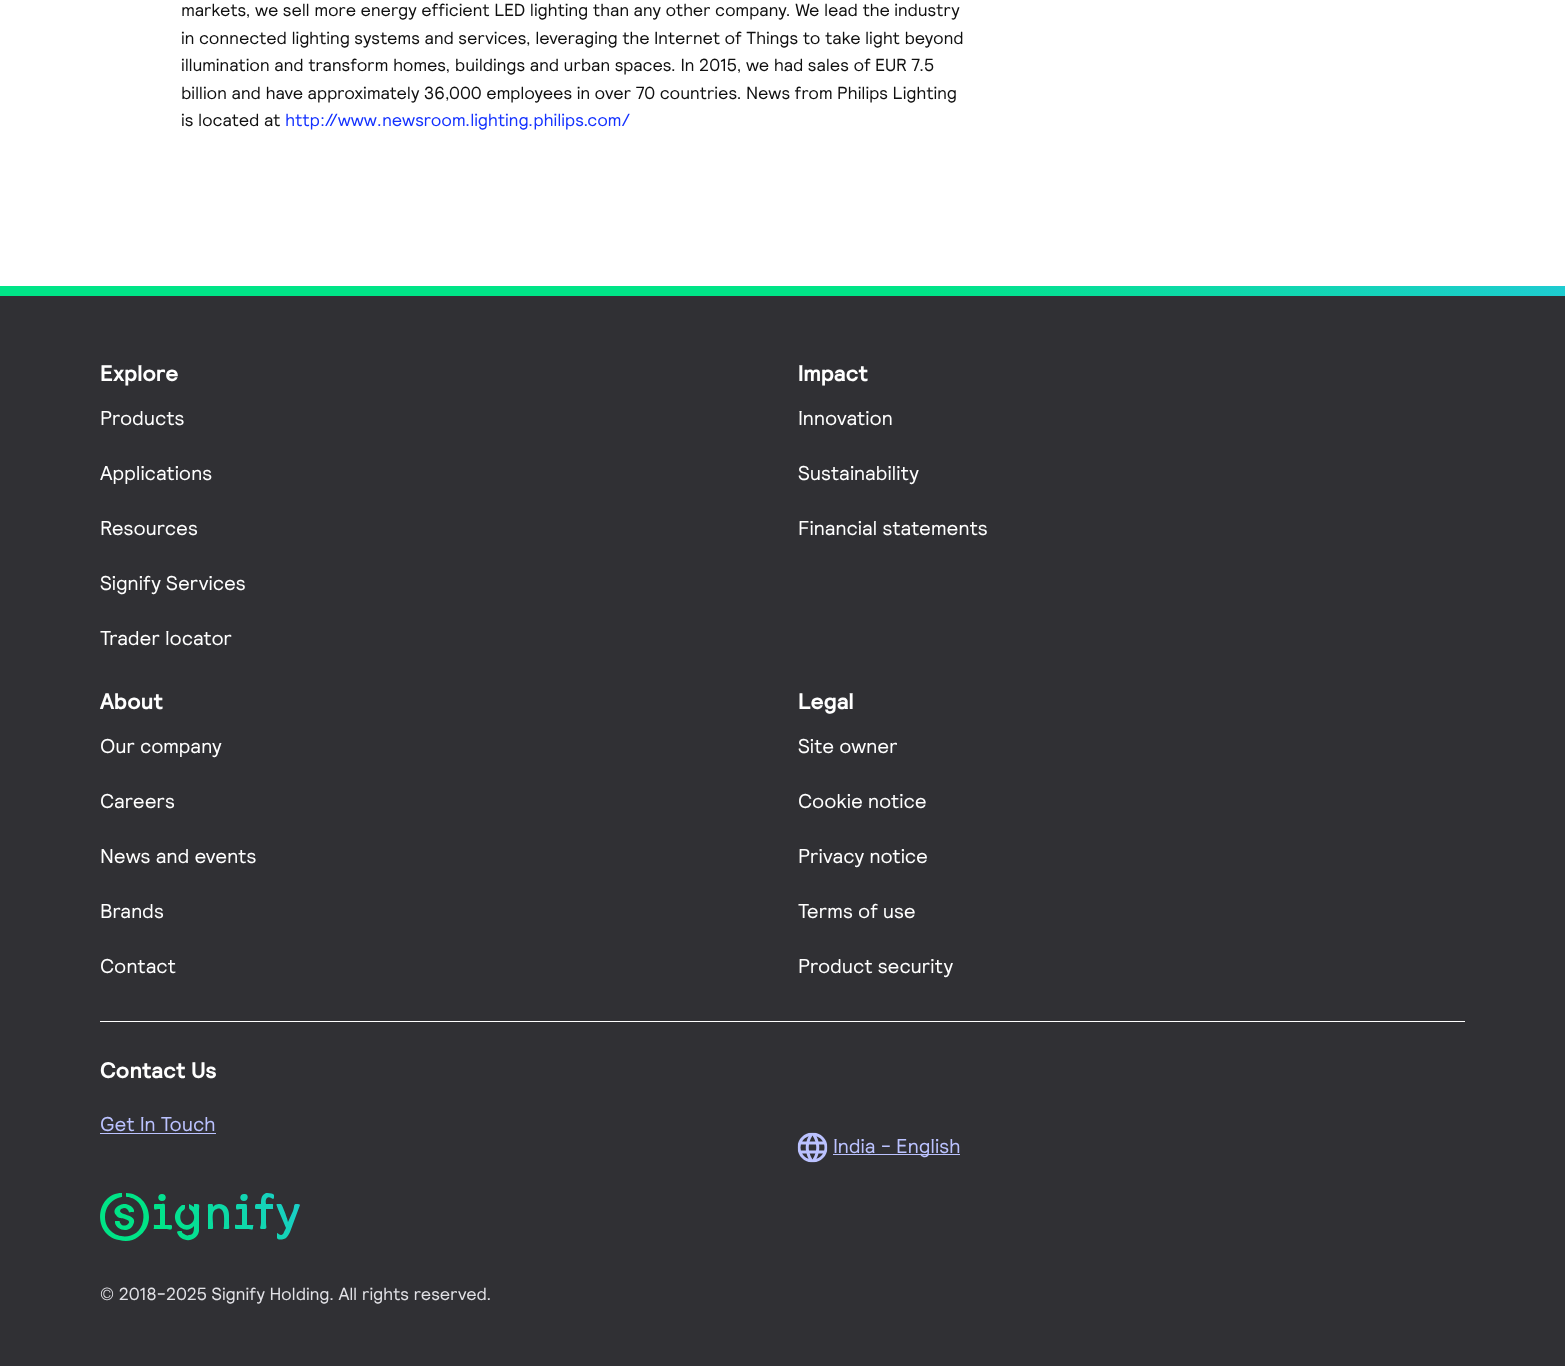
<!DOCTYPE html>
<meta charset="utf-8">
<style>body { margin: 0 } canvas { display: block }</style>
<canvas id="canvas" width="1565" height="1366"></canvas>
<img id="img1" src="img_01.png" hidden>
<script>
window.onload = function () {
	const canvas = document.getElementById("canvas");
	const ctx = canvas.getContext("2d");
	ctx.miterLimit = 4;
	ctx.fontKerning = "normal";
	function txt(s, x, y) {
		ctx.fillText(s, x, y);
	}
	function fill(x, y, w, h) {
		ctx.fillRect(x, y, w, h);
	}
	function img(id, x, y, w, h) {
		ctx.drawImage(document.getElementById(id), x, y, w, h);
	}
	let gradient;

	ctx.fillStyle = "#FFFFFF";
	fill(0, 0, 1565, 1366);
	ctx.fillStyle = "#303034";
	fill(0, 296, 1565, 1070);
	gradient = ctx.createLinearGradient(178, 622, 1387, -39);
	gradient.addColorStop(0.59, "#00E487");
	gradient.addColorStop(1, "#1ECBD0");
	ctx.fillStyle = gradient;
	fill(0, 286, 1565, 10);
	ctx.fillStyle = "#FFFFFF";
	fill(100, 1021, 1365, 1);
	ctx.fillStyle = "#BBC2FF";
	fill(100, 1133, 116, 1);
	img("img1", 797, 1132, 31, 31);
	fill(833, 1154, 127, 1);
	gradient = ctx.createLinearGradient(51, 1321, 287, 1156);
	gradient.addColorStop(0.5, "#00E487");
	gradient.addColorStop(1, "#1ECBD0");
	ctx.fillStyle = gradient;
	ctx.beginPath();
	ctx.moveTo(149, 1217);
	ctx.bezierCurveTo(149, 1204, 139, 1193, 126, 1193);
	ctx.bezierCurveTo(126, 1200, 126, 1195, 134, 1199);
	ctx.bezierCurveTo(141, 1203, 145, 1212, 143, 1221);
	ctx.bezierCurveTo(139, 1244, 105, 1240, 105, 1217);
	ctx.bezierCurveTo(105, 1208, 110, 1201, 118, 1198);
	ctx.bezierCurveTo(123, 1196, 122, 1199, 122, 1193);
	ctx.bezierCurveTo(95, 1193, 92, 1235, 119, 1240);
	ctx.bezierCurveTo(126, 1242, 133, 1241, 138, 1237);
	ctx.bezierCurveTo(145, 1232, 149, 1225, 149, 1217);
	ctx.closePath();
	ctx.moveTo(256, 1209);
	ctx.bezierCurveTo(255, 1209, 255, 1208, 255, 1207);
	ctx.bezierCurveTo(255, 1203, 256, 1204, 261, 1204);
	ctx.bezierCurveTo(261, 1200, 261, 1195, 266, 1193);
	ctx.bezierCurveTo(268, 1193, 271, 1193, 273, 1194);
	ctx.lineTo(274, 1195);
	ctx.lineTo(274, 1197);
	ctx.bezierCurveTo(274, 1202, 270, 1195, 267, 1198);
	ctx.bezierCurveTo(265, 1200, 266, 1203, 266, 1204);
	ctx.lineTo(271, 1204);
	ctx.bezierCurveTo(274, 1204, 273, 1204, 273, 1207);
	ctx.bezierCurveTo(273, 1209, 274, 1209, 271, 1209);
	ctx.lineTo(266, 1209);
	ctx.lineTo(266, 1222);
	ctx.bezierCurveTo(266, 1228, 268, 1229, 263, 1229);
	ctx.bezierCurveTo(258, 1229, 261, 1228, 261, 1222);
	ctx.lineTo(261, 1209);
	ctx.closePath();
	ctx.moveTo(162, 1201);
	ctx.bezierCurveTo(157, 1201, 157, 1194, 162, 1194);
	ctx.bezierCurveTo(167, 1194, 167, 1201, 162, 1201);
	ctx.closePath();
	ctx.moveTo(244, 1201);
	ctx.bezierCurveTo(239, 1201, 239, 1194, 244, 1194);
	ctx.bezierCurveTo(249, 1193, 249, 1201, 244, 1201);
	ctx.closePath();
	ctx.moveTo(124, 1208);
	ctx.lineTo(121, 1209);
	ctx.bezierCurveTo(115, 1216, 140, 1213, 133, 1225);
	ctx.bezierCurveTo(132, 1228, 128, 1230, 125, 1230);
	ctx.bezierCurveTo(120, 1230, 116, 1227, 115, 1223);
	ctx.lineTo(115, 1221);
	ctx.lineTo(117, 1221);
	ctx.bezierCurveTo(122, 1221, 118, 1221, 121, 1224);
	ctx.bezierCurveTo(122, 1226, 126, 1226, 128, 1224);
	ctx.bezierCurveTo(133, 1220, 121, 1218, 120, 1218);
	ctx.bezierCurveTo(119, 1218, 117, 1217, 116, 1215);
	ctx.bezierCurveTo(111, 1209, 120, 1203, 126, 1204);
	ctx.bezierCurveTo(130, 1205, 133, 1207, 134, 1210);
	ctx.bezierCurveTo(134, 1213, 134, 1212, 131, 1212);
	ctx.bezierCurveTo(131, 1212, 129, 1213, 129, 1212);
	ctx.bezierCurveTo(128, 1210, 127, 1208, 124, 1208);
	ctx.closePath();
	ctx.moveTo(219, 1204);
	ctx.bezierCurveTo(226, 1204, 229, 1209, 229, 1215);
	ctx.lineTo(229, 1222);
	ctx.bezierCurveTo(229, 1230, 231, 1229, 224, 1229);
	ctx.bezierCurveTo(223, 1229, 224, 1227, 224, 1226);
	ctx.bezierCurveTo(224, 1223, 225, 1213, 222, 1210);
	ctx.bezierCurveTo(221, 1209, 219, 1208, 217, 1209);
	ctx.bezierCurveTo(211, 1210, 213, 1219, 213, 1224);
	ctx.bezierCurveTo(213, 1229, 214, 1229, 210, 1229);
	ctx.lineTo(208, 1229);
	ctx.lineTo(208, 1209);
	ctx.bezierCurveTo(208, 1203, 207, 1204, 212, 1204);
	ctx.bezierCurveTo(213, 1204, 213, 1206, 213, 1207);
	ctx.bezierCurveTo(214, 1205, 217, 1204, 219, 1204);
	ctx.closePath();
	ctx.moveTo(194, 1204);
	ctx.bezierCurveTo(201, 1204, 199, 1204, 199, 1213);
	ctx.lineTo(199, 1231);
	ctx.bezierCurveTo(197, 1243, 180, 1243, 177, 1232);
	ctx.bezierCurveTo(177, 1231, 179, 1231, 180, 1231);
	ctx.bezierCurveTo(184, 1231, 180, 1232, 184, 1234);
	ctx.bezierCurveTo(186, 1235, 187, 1236, 189, 1235);
	ctx.bezierCurveTo(194, 1235, 194, 1230, 194, 1226);
	ctx.bezierCurveTo(185, 1237, 168, 1221, 178, 1209);
	ctx.bezierCurveTo(179, 1207, 181, 1206, 182, 1205);
	ctx.lineTo(185, 1205);
	ctx.lineTo(185, 1207);
	ctx.bezierCurveTo(185, 1211, 183, 1209, 181, 1213);
	ctx.bezierCurveTo(179, 1218, 181, 1225, 187, 1225);
	ctx.bezierCurveTo(193, 1225, 196, 1218, 193, 1213);
	ctx.bezierCurveTo(192, 1209, 189, 1211, 189, 1207);
	ctx.lineTo(189, 1204);
	ctx.lineTo(191, 1205);
	ctx.lineTo(194, 1207);
	ctx.bezierCurveTo(194, 1206, 194, 1204, 194, 1204);
	ctx.closePath();
	ctx.moveTo(171, 1225);
	ctx.bezierCurveTo(172, 1225, 172, 1226, 172, 1227);
	ctx.bezierCurveTo(172, 1231, 170, 1229, 165, 1229);
	ctx.lineTo(154, 1229);
	ctx.bezierCurveTo(153, 1229, 154, 1228, 154, 1227);
	ctx.bezierCurveTo(154, 1224, 153, 1225, 155, 1225);
	ctx.lineTo(160, 1225);
	ctx.lineTo(160, 1209);
	ctx.bezierCurveTo(155, 1209, 154, 1211, 154, 1207);
	ctx.bezierCurveTo(154, 1203, 154, 1204, 158, 1204);
	ctx.bezierCurveTo(165, 1204, 165, 1202, 165, 1208);
	ctx.lineTo(165, 1225);
	ctx.closePath();
	ctx.moveTo(253, 1225);
	ctx.bezierCurveTo(254, 1225, 253, 1226, 253, 1227);
	ctx.bezierCurveTo(253, 1231, 252, 1229, 247, 1229);
	ctx.lineTo(236, 1229);
	ctx.bezierCurveTo(235, 1229, 235, 1228, 235, 1227);
	ctx.bezierCurveTo(235, 1224, 235, 1225, 237, 1225);
	ctx.lineTo(242, 1225);
	ctx.lineTo(242, 1209);
	ctx.bezierCurveTo(237, 1209, 236, 1211, 236, 1207);
	ctx.bezierCurveTo(236, 1203, 237, 1204, 241, 1204);
	ctx.bezierCurveTo(247, 1204, 247, 1203, 247, 1208);
	ctx.lineTo(247, 1225);
	ctx.closePath();
	ctx.moveTo(286, 1228);
	ctx.lineTo(278, 1209);
	ctx.bezierCurveTo(276, 1203, 275, 1204, 281, 1204);
	ctx.bezierCurveTo(282, 1204, 288, 1220, 288, 1222);
	ctx.lineTo(293, 1211);
	ctx.bezierCurveTo(295, 1205, 293, 1204, 297, 1204);
	ctx.bezierCurveTo(298, 1204, 300, 1204, 300, 1205);
	ctx.lineTo(290, 1232);
	ctx.bezierCurveTo(289, 1234, 288, 1236, 286, 1238);
	ctx.bezierCurveTo(285, 1239, 278, 1241, 277, 1238);
	ctx.lineTo(277, 1233);
	ctx.bezierCurveTo(278, 1233, 282, 1238, 284, 1232);
	ctx.closePath();
	ctx.fill("evenodd");
	ctx.font = "17.5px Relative";
	ctx.fillStyle = "#101010";
	txt("markets, we sell more energy efficient LED lighting than any other company. We lead the industry", 181, 16);
	txt("in connected lighting systems and services, leveraging the Internet of Things to take light beyond", 181, 44);
	txt("illumination and transform homes, buildings and urban spaces. In 2015, we had sales of EUR 7.5", 181, 71);
	txt("billion and have approximately 36,000 employees in over 70 countries. News from Philips Lighting", 181, 99);
	txt("is located at", 181, 126);
	ctx.fillStyle = "#1432FF";
	txt("http://www.newsroom.lighting.philips.com/", 285, 126);
	ctx.font = "bold 22.5px Relative";
	ctx.fillStyle = "#FFFFFF";
	txt("Explore", 100, 381);
	ctx.font = "20px Relative";
	txt("Products", 100, 425);
	txt("Applications", 100, 480);
	txt("Resources", 100, 535);
	txt("Signify Services", 100, 590);
	txt("Trader locator", 100, 645);
	ctx.font = "bold 22.5px Relative";
	txt("Impact", 798, 381);
	ctx.font = "20px Relative";
	txt("Innovation", 798, 425);
	txt("Sustainability", 798, 480);
	txt("Financial statements", 798, 535);
	ctx.font = "bold 22.5px Relative";
	txt("About", 100, 709);
	ctx.font = "20px Relative";
	txt("Our company", 100, 753);
	txt("Careers", 100, 808);
	txt("News and events", 100, 863);
	txt("Brands", 100, 918);
	txt("Contact", 100, 973);
	ctx.font = "bold 22.5px Relative";
	txt("Legal", 798, 709);
	ctx.font = "20px Relative";
	txt("Site owner", 798, 753);
	txt("Cookie notice", 798, 808);
	txt("Privacy notice", 798, 863);
	txt("Terms of use", 798, 918);
	txt("Product security", 798, 973);
	ctx.font = "bold 22.5px Relative";
	txt("Contact Us", 100, 1078);
	ctx.font = "20px Relative";
	ctx.fillStyle = "#BBC2FF";
	txt("Get In Touch", 100, 1131);
	txt("India - English", 833, 1153);
	ctx.font = "17.5px Relative";
	ctx.fillStyle = "#E1E1E6";
	txt("© 2018-2025 Signify Holding. All rights reserved.", 100, 1300);
};
</script>
